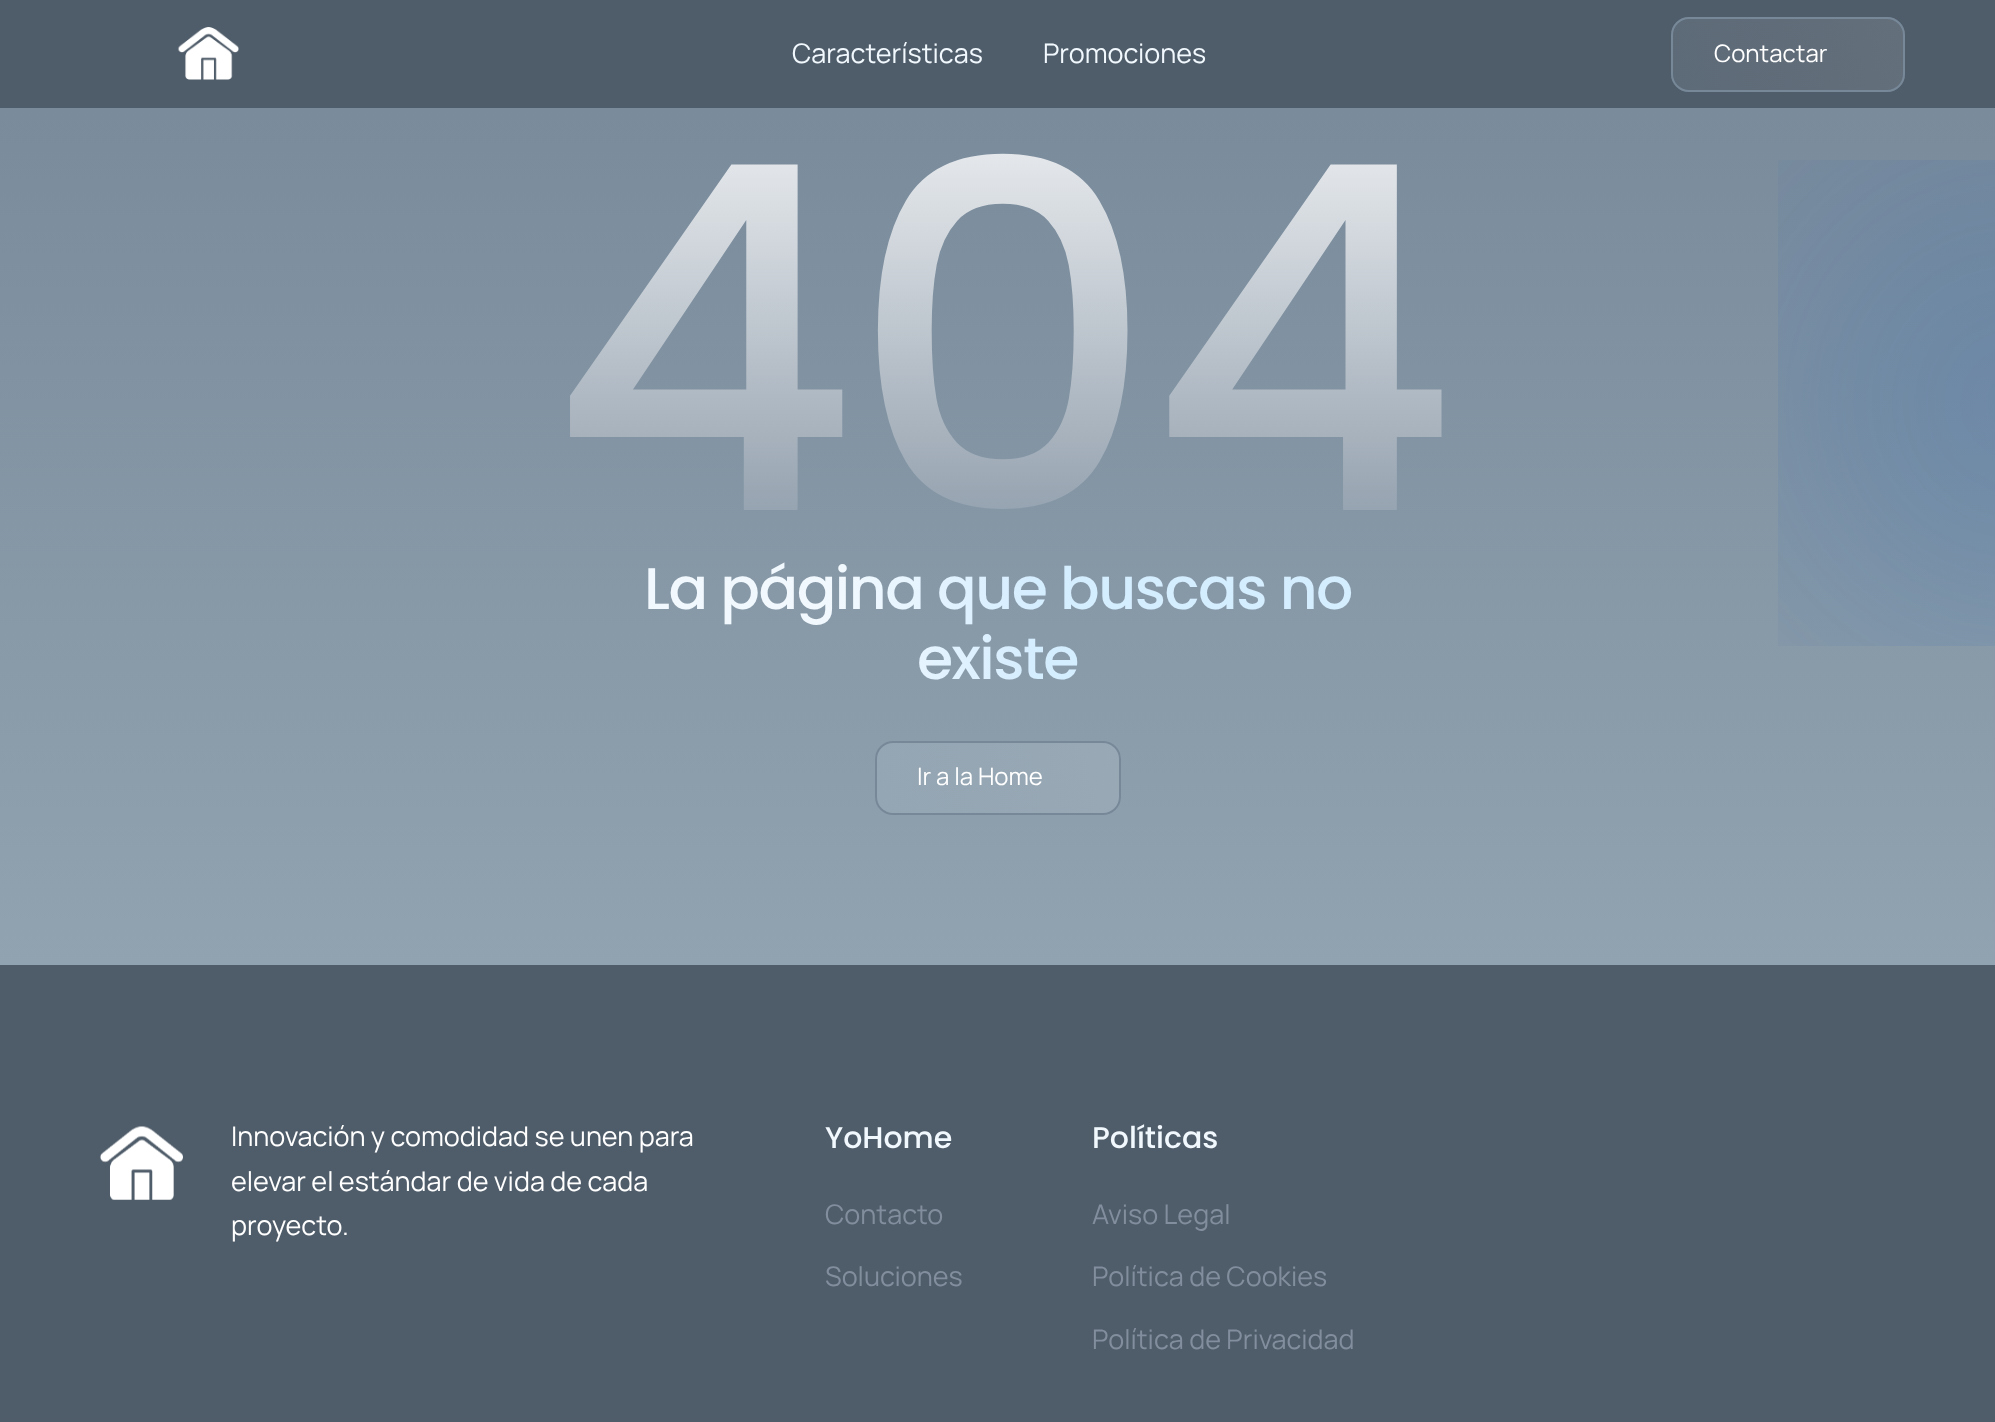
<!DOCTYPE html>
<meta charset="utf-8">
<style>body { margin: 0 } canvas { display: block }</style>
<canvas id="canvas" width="1995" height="1422"></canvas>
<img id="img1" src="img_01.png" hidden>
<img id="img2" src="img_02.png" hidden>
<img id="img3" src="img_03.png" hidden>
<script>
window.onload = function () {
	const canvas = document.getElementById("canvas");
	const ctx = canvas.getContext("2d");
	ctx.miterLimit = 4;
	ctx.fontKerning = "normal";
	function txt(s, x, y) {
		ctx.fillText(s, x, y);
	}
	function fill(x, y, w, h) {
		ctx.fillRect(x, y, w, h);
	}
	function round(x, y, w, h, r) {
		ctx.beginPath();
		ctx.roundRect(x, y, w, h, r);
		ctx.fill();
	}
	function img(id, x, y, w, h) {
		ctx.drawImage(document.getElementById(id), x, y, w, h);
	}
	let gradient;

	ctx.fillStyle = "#FFFFFF";
	fill(0, 0, 1995, 1422);
	ctx.fillStyle = "#4F5C69";
	fill(0, 0, 1995, 108);
	img("img1", 177, 27, 62, 53);
	gradient = ctx.createLinearGradient(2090, -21, 1669, 84);
	gradient.addColorStop(0, "#68737E");
	gradient.addColorStop(1, "#5D6A77");
	ctx.fillStyle = gradient;
	round(1671, 17, 234, 75, 18);
	ctx.beginPath();
	ctx.roundRect(1672, 18, 232, 73, 17);
	ctx.strokeStyle = "#778899";
	ctx.lineWidth = 2;
	ctx.stroke();
	gradient = ctx.createLinearGradient(998, 0, 998, 965);
	gradient.addColorStop(0, "#778899");
	gradient.addColorStop(1, "#91A3B0");
	ctx.fillStyle = gradient;
	fill(0, 108, 1995, 857);
	img("img2", 1778, 160, 217, 486);
	gradient = ctx.createLinearGradient(1314, 699, 873, 809);
	gradient.addColorStop(0, "#9CABB7");
	gradient.addColorStop(1, "#94A5B3");
	ctx.fillStyle = gradient;
	round(875, 741, 246, 74, 18);
	ctx.beginPath();
	ctx.roundRect(876, 742, 244, 72, 17);
	ctx.stroke();
	ctx.fillStyle = "#4F5C69";
	fill(0, 965, 1995, 457);
	img("img3", 100, 1126, 83, 74);
	ctx.font = "27px Manrope";
	ctx.fillStyle = "#F2F9FE";
	txt("Características", 792, 63);
	txt("Promociones", 1043, 63);
	ctx.font = "24px Manrope";
	ctx.fillStyle = "#FFFFFF";
	txt("Contactar", 1714, 62);
	ctx.letterSpacing = "-9.5px";
	ctx.font = "500 480px Poppins";
	gradient = ctx.createLinearGradient(998, 654, 998, 30);
	gradient.addColorStop(0, "#778899");
	gradient.addColorStop(1, "#FFFFFF");
	ctx.fillStyle = gradient;
	txt("404", 548, 510);
	ctx.letterSpacing = "-1.5px";
	ctx.font = "500 58.5px Poppins";
	gradient = ctx.createLinearGradient(590, 625, 1405, 625);
	gradient.addColorStop(0.3, "#F2F9FE");
	gradient.addColorStop(0.55, "#D4EDFF");
	ctx.fillStyle = gradient;
	txt("La página que buscas no", 644, 609);
	txt("existe", 917, 679);
	ctx.letterSpacing = "0px";
	ctx.font = "24px Manrope";
	ctx.fillStyle = "#FFFFFF";
	txt("Ir a la Home", 917, 785);
	ctx.font = "27px Manrope";
	txt("Innovación y comodidad se unen para", 231, 1146);
	txt("elevar el estándar de vida de cada", 231, 1191);
	txt("proyecto.", 231, 1235);
	ctx.font = "500 30px Poppins";
	ctx.fillStyle = "#F2F9FE";
	txt("YoHome", 825, 1148);
	ctx.font = "27px Manrope";
	ctx.fillStyle = "#828E9D";
	txt("Contacto", 825, 1224);
	txt("Soluciones", 825, 1286);
	ctx.font = "500 30px Poppins";
	ctx.fillStyle = "#F2F9FE";
	txt("Políticas", 1092, 1148);
	ctx.font = "27px Manrope";
	ctx.fillStyle = "#828E9D";
	txt("Aviso Legal", 1092, 1224);
	txt("Política de Cookies", 1092, 1286);
	txt("Política de Privacidad", 1092, 1349);
};
</script>
